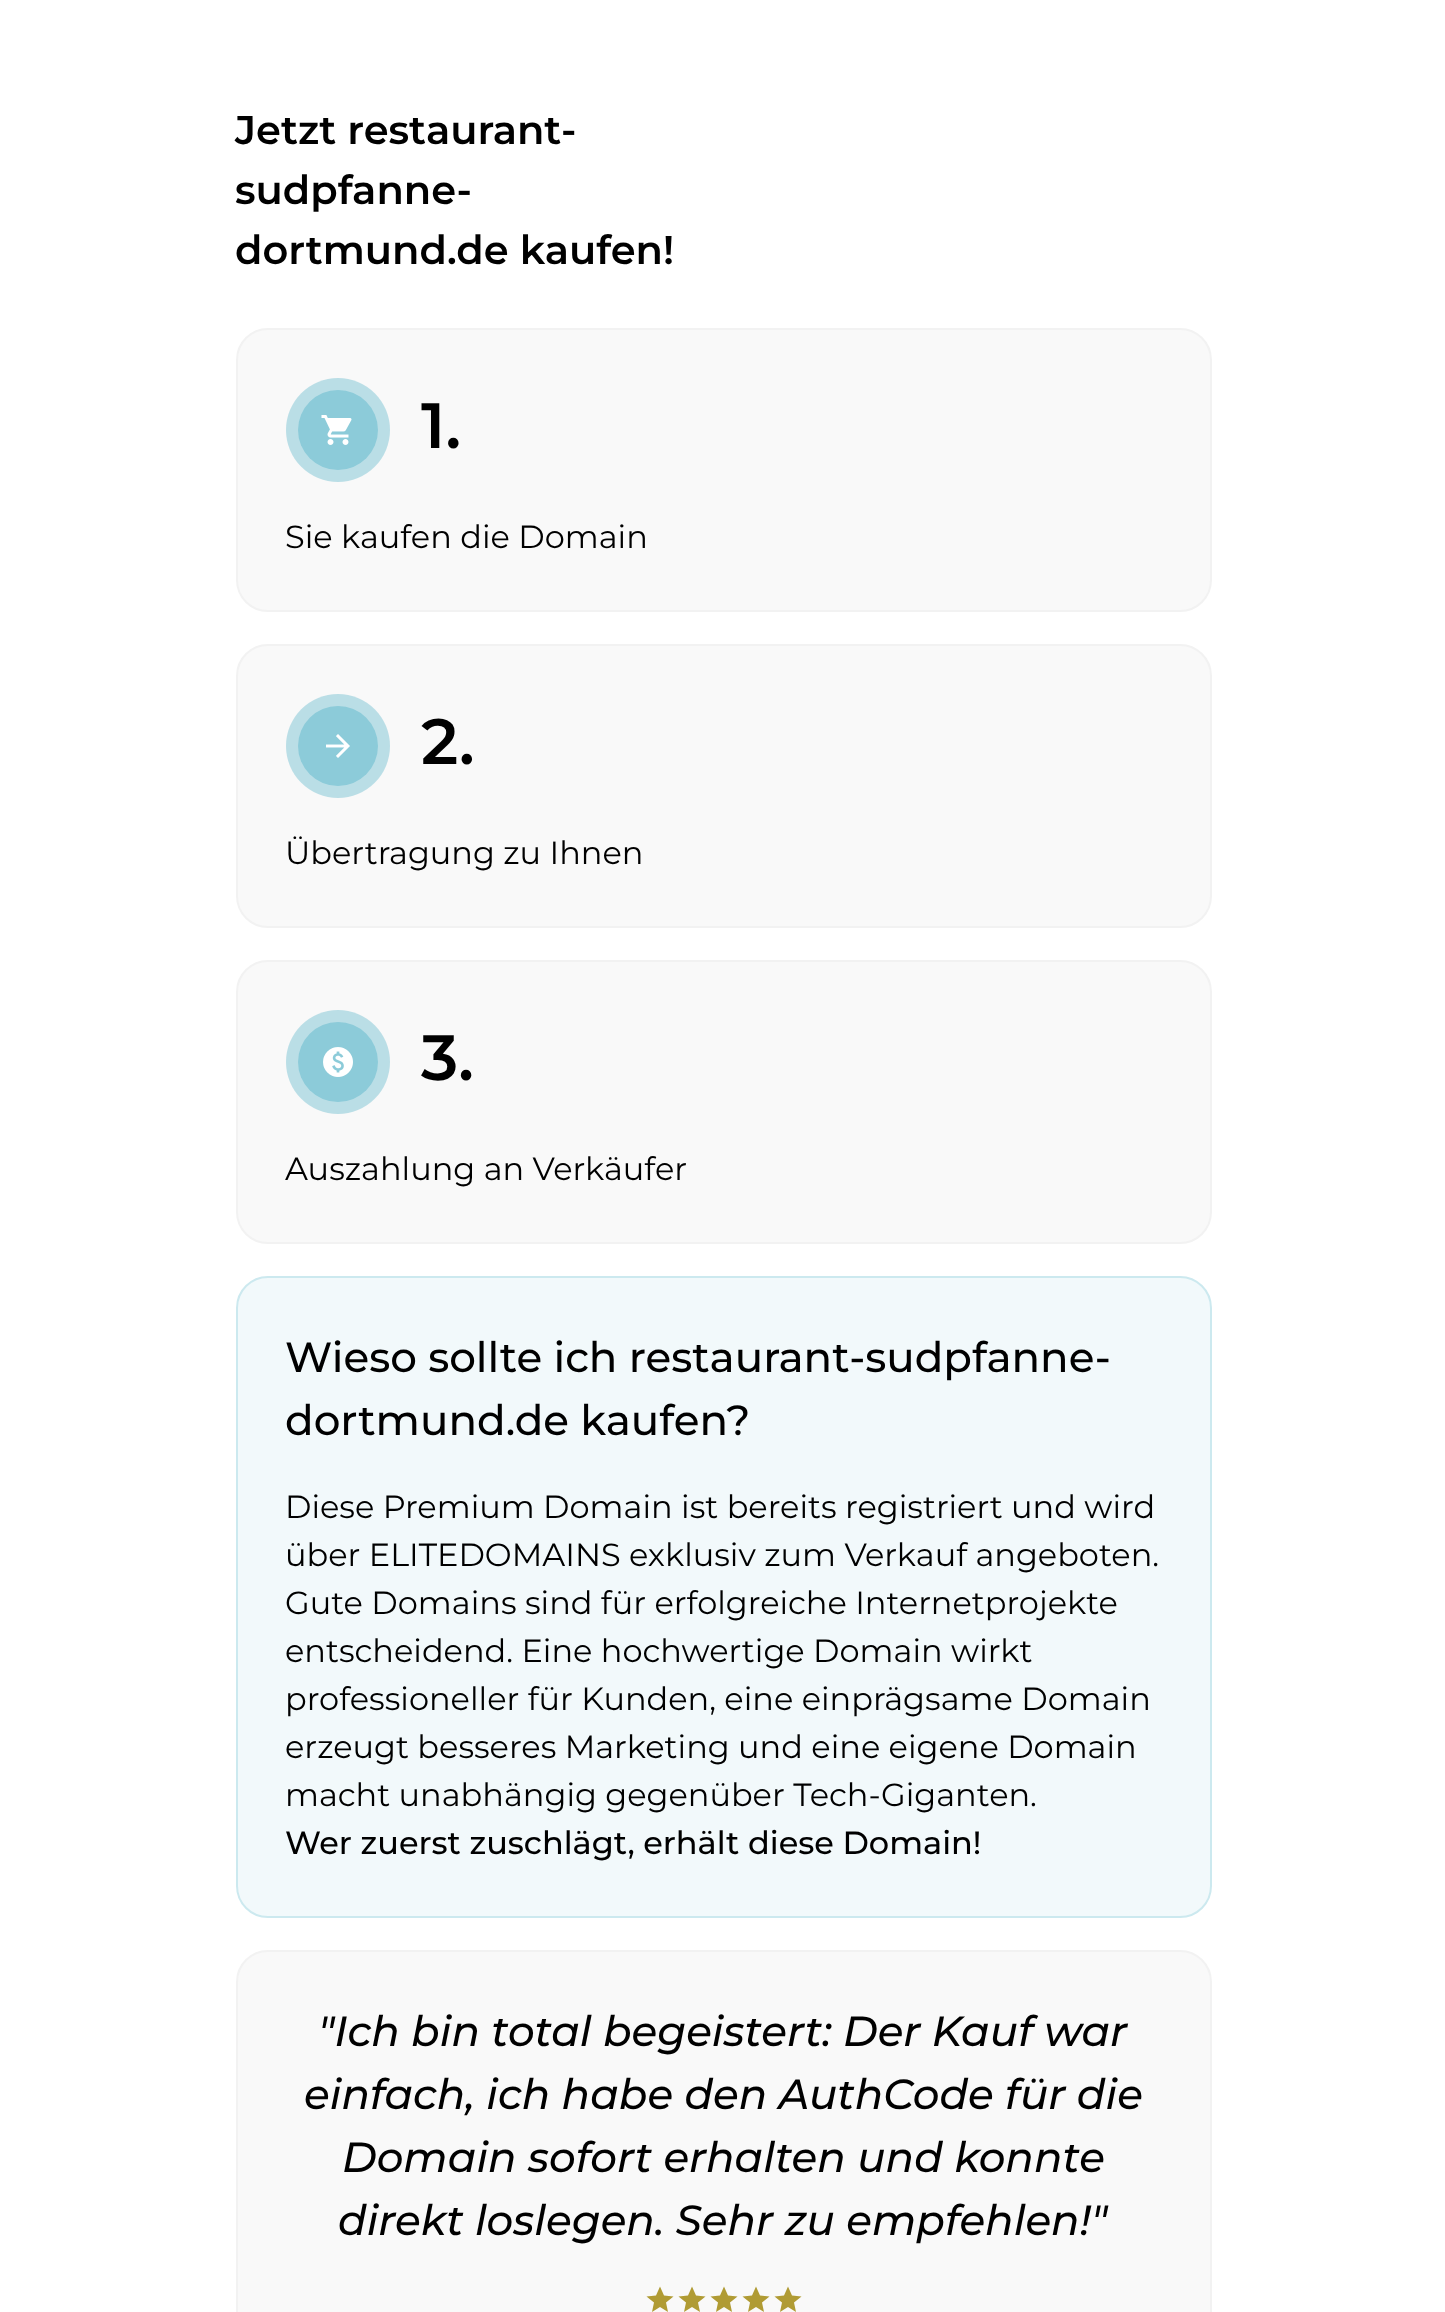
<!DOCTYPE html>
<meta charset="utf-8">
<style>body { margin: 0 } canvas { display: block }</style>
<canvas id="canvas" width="1445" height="2312"></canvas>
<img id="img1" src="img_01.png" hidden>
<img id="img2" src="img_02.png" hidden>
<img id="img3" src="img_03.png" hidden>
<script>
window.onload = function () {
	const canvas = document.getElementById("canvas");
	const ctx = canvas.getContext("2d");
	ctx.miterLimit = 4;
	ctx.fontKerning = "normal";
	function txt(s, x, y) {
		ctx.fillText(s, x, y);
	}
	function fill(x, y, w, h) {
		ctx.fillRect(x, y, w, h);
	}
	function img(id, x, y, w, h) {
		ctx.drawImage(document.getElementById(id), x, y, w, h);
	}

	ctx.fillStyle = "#FFFFFF";
	fill(0, 0, 1445, 2312);
	ctx.fillStyle = "#F9F9F9";
	ctx.beginPath();
	ctx.roundRect(237, 329, 974, 282, 31);
	ctx.fill();
	ctx.strokeStyle = "#F2F2F2";
	ctx.lineWidth = 2;
	ctx.stroke();
	ctx.fillStyle = "#BBDFE7";
	ctx.beginPath();
	ctx.arc(338, 430, 40, 0, Math.PI * 2);
	ctx.fill();
	ctx.fillStyle = "rgba(0, 143, 175, 0.25)";
	ctx.beginPath();
	ctx.arc(338, 430, 52, 0, Math.PI * 2);
	ctx.fill();
	img("img1", 321, 415, 31, 30);
	ctx.fillStyle = "#F9F9F9";
	ctx.beginPath();
	ctx.roundRect(237, 645, 974, 282, 31);
	ctx.fill();
	ctx.stroke();
	ctx.fillStyle = "#BBDFE7";
	ctx.beginPath();
	ctx.arc(338, 746, 40, 0, Math.PI * 2);
	ctx.fill();
	ctx.fillStyle = "rgba(0, 143, 175, 0.25)";
	ctx.beginPath();
	ctx.arc(338, 746, 52, 0, Math.PI * 2);
	ctx.fill();
	img("img2", 326, 734, 24, 24);
	ctx.fillStyle = "#F9F9F9";
	ctx.beginPath();
	ctx.roundRect(237, 961, 974, 282, 31);
	ctx.fill();
	ctx.stroke();
	ctx.fillStyle = "#BBDFE7";
	ctx.beginPath();
	ctx.arc(338, 1062, 40, 0, Math.PI * 2);
	ctx.fill();
	ctx.fillStyle = "rgba(0, 143, 175, 0.25)";
	ctx.beginPath();
	ctx.arc(338, 1062, 52, 0, Math.PI * 2);
	ctx.fill();
	img("img3", 323, 1047, 30, 30);
	ctx.fillStyle = "#F2F9FB";
	ctx.beginPath();
	ctx.roundRect(237, 1277, 974, 640, 31);
	ctx.fill();
	ctx.strokeStyle = "#CCE9EF";
	ctx.stroke();
	ctx.fillStyle = "#F9F9F9";
	ctx.beginPath();
	ctx.roundRect(237, 1951, 974, 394, 31);
	ctx.fill();
	ctx.strokeStyle = "#F2F2F2";
	ctx.stroke();
	ctx.fillStyle = "#B09B34";
	ctx.beginPath();
	ctx.moveTo(660, 2307);
	ctx.lineTo(652, 2312);
	ctx.lineTo(654, 2302.5);
	ctx.lineTo(646.5, 2296.5);
	ctx.lineTo(656, 2295.5);
	ctx.lineTo(660, 2286.5);
	ctx.lineTo(664, 2295.5);
	ctx.lineTo(673.5, 2296.5);
	ctx.lineTo(666, 2302.5);
	ctx.lineTo(668, 2312);
	ctx.closePath();
	ctx.moveTo(692, 2307);
	ctx.lineTo(684, 2312);
	ctx.lineTo(686, 2302.5);
	ctx.lineTo(678.5, 2296.5);
	ctx.lineTo(688, 2295.5);
	ctx.lineTo(692, 2286.5);
	ctx.lineTo(696, 2295.5);
	ctx.lineTo(705.5, 2296.5);
	ctx.lineTo(698, 2302.5);
	ctx.lineTo(700, 2312);
	ctx.closePath();
	ctx.fill();
	ctx.beginPath();
	ctx.moveTo(724, 2307);
	ctx.lineTo(716, 2312);
	ctx.lineTo(718, 2302.5);
	ctx.lineTo(710.5, 2296.5);
	ctx.lineTo(720, 2295.5);
	ctx.lineTo(724, 2286.5);
	ctx.lineTo(728, 2295.5);
	ctx.lineTo(737.5, 2296.5);
	ctx.lineTo(730, 2302.5);
	ctx.lineTo(732, 2312);
	ctx.closePath();
	ctx.moveTo(756, 2307);
	ctx.lineTo(748, 2312);
	ctx.lineTo(750, 2302.5);
	ctx.lineTo(742.5, 2296.5);
	ctx.lineTo(752, 2295.5);
	ctx.lineTo(756, 2286.5);
	ctx.lineTo(760, 2295.5);
	ctx.lineTo(769.5, 2296.5);
	ctx.lineTo(762, 2302.5);
	ctx.lineTo(764, 2312);
	ctx.closePath();
	ctx.fill();
	ctx.beginPath();
	ctx.moveTo(788, 2307);
	ctx.lineTo(780, 2312);
	ctx.lineTo(782, 2302.5);
	ctx.lineTo(774.5, 2296.5);
	ctx.lineTo(784, 2295.5);
	ctx.lineTo(788, 2286.5);
	ctx.lineTo(792, 2295.5);
	ctx.lineTo(801.5, 2296.5);
	ctx.lineTo(794, 2302.5);
	ctx.lineTo(796, 2312);
	ctx.closePath();
	ctx.fill();
	ctx.font = "600 40px Montserrat";
	ctx.fillStyle = "#000000";
	txt("Jetzt restaurant-", 235, 144);
	txt("sudpfanne-", 235, 204);
	txt("dortmund.de kaufen!", 235, 264);
	ctx.font = "600 64px Montserrat";
	txt("1.", 421, 448);
	ctx.font = "32px Montserrat";
	txt("Sie kaufen die Domain", 285, 548);
	ctx.font = "600 64px Montserrat";
	txt("2.", 421, 764);
	ctx.font = "32px Montserrat";
	txt("Übertragung zu Ihnen", 285, 864);
	ctx.font = "600 64px Montserrat";
	txt("3.", 421, 1080);
	ctx.font = "32px Montserrat";
	txt("Auszahlung an Verkäufer", 285, 1180);
	ctx.font = "500 42px Montserrat";
	txt("Wieso sollte ich restaurant-sudpfanne-", 285, 1372);
	txt("dortmund.de kaufen?", 285, 1435);
	ctx.font = "32px Montserrat";
	txt("Diese Premium Domain ist bereits registriert und wird", 285, 1518);
	txt("über ELITEDOMAINS exklusiv zum Verkauf angeboten.", 285, 1566);
	txt("Gute Domains sind für erfolgreiche Internetprojekte", 285, 1614);
	txt("entscheidend. Eine hochwertige Domain wirkt", 285, 1662);
	txt("professioneller für Kunden, eine einprägsame Domain", 285, 1710);
	txt("erzeugt besseres Marketing und eine eigene Domain", 285, 1758);
	txt("macht unabhängig gegenüber Tech-Giganten.", 285, 1806);
	ctx.font = "500 32px Montserrat";
	txt("Wer zuerst zuschlägt, erhält diese Domain!", 285, 1854);
	ctx.font = "italic 500 42px Montserrat";
	txt("\"Ich bin total begeistert: Der Kauf war", 318, 2046);
	txt("einfach, ich habe den AuthCode für die", 304, 2109);
	txt("Domain sofort erhalten und konnte", 342, 2172);
	txt("direkt loslegen. Sehr zu empfehlen!\"", 338, 2235);
};
</script>
